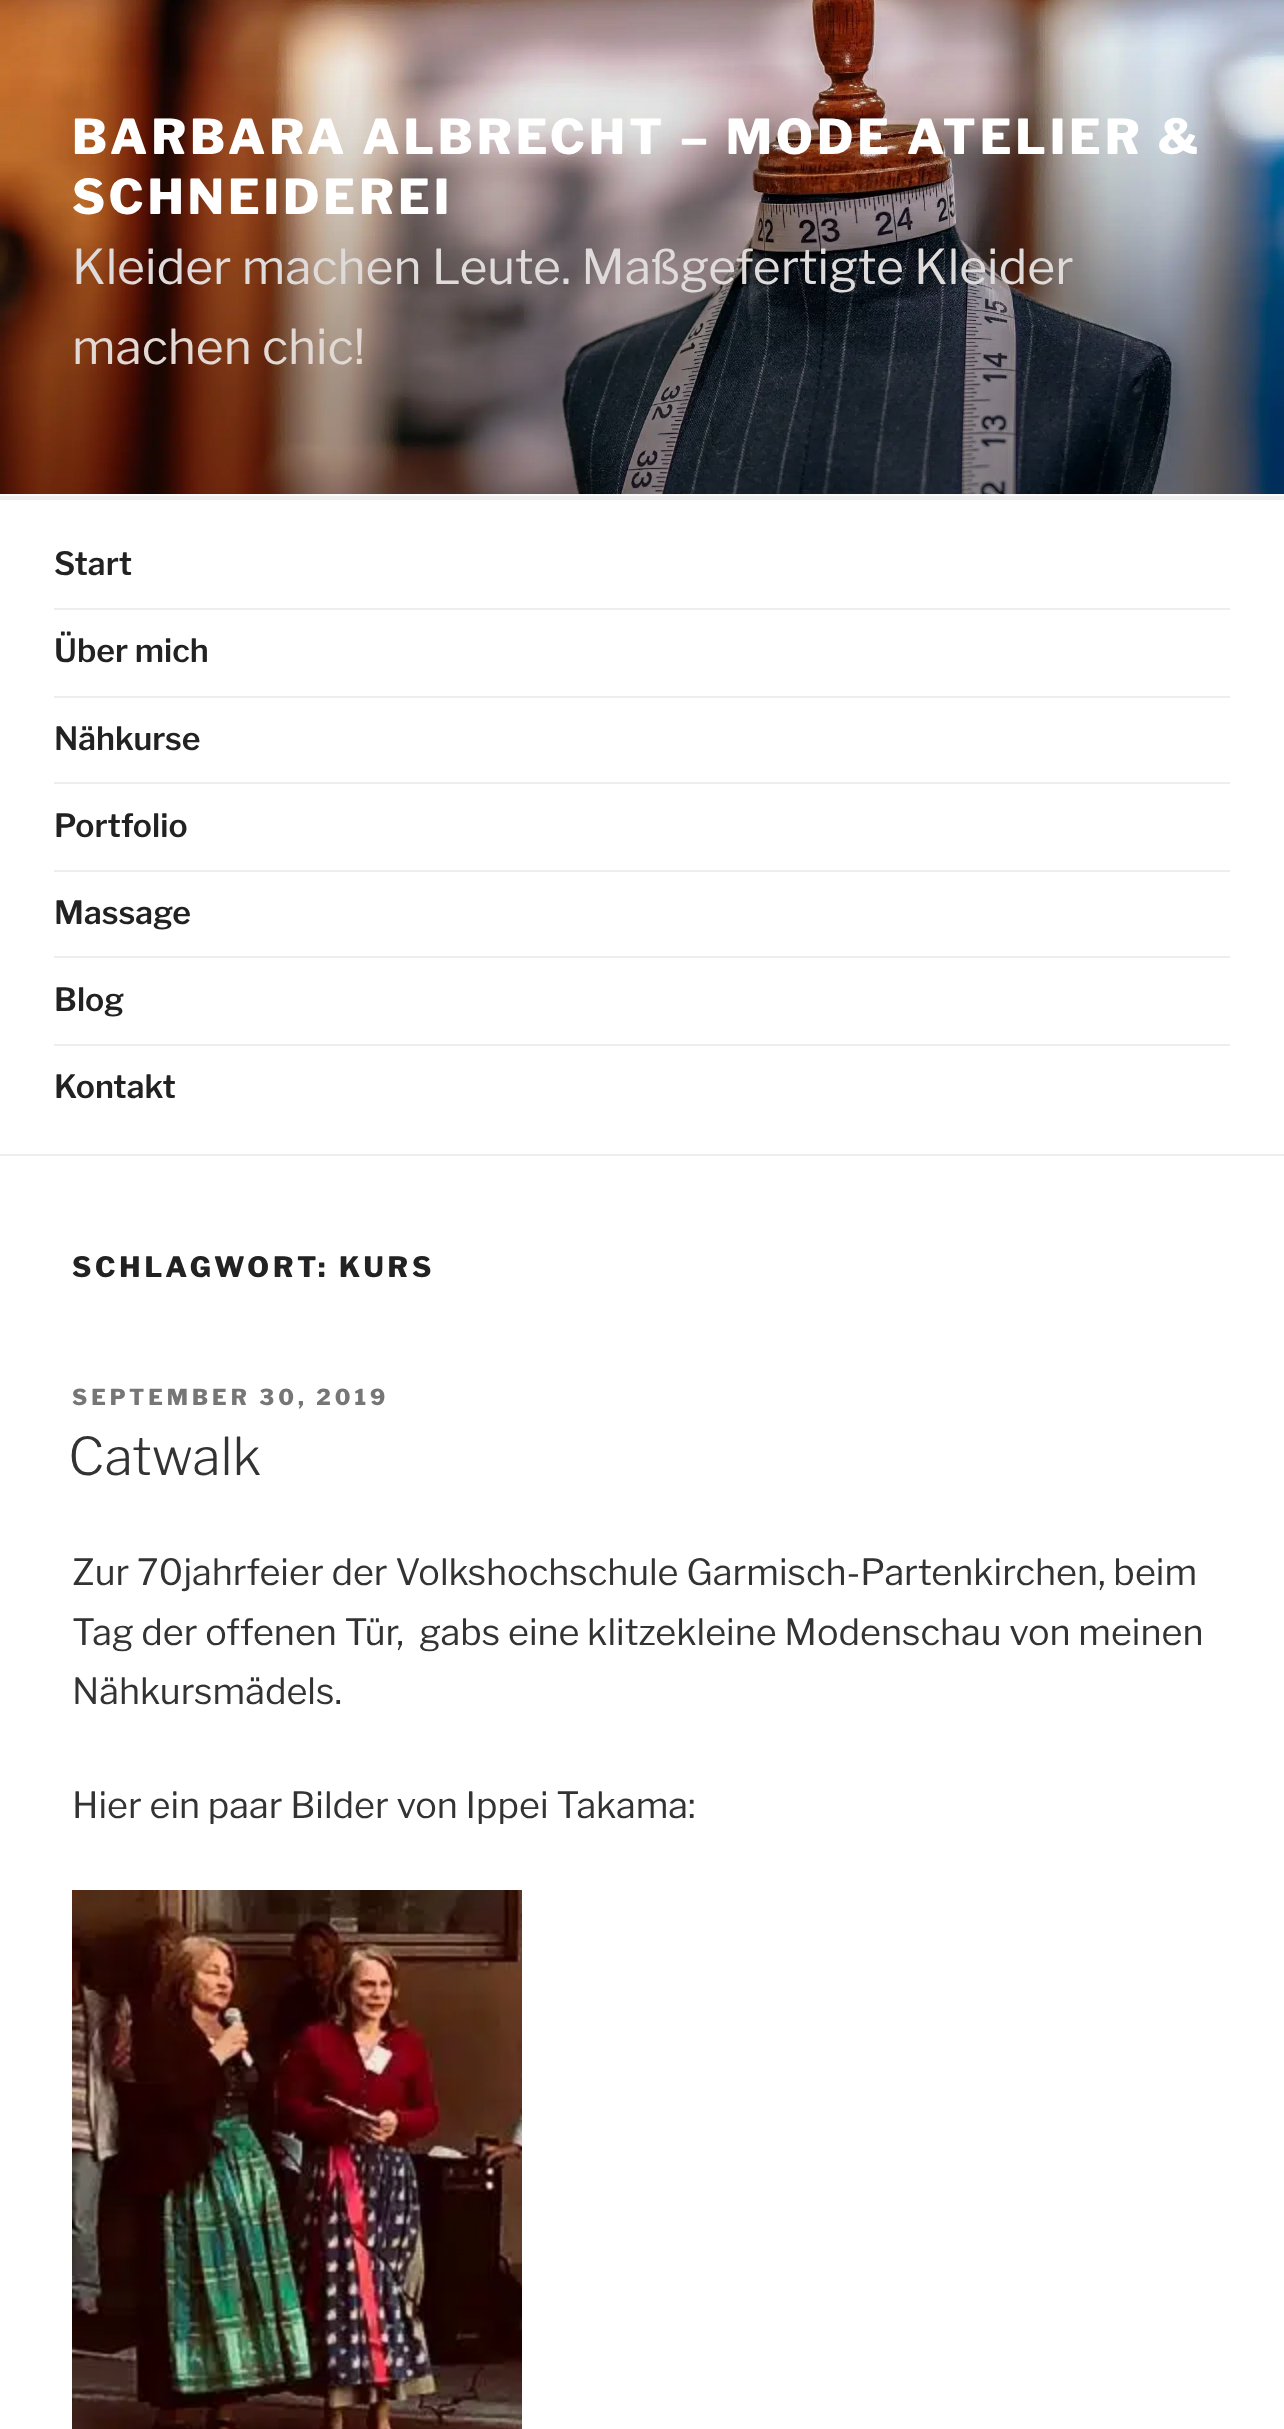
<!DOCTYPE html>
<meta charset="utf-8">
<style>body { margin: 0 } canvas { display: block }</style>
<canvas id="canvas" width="1284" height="2429"></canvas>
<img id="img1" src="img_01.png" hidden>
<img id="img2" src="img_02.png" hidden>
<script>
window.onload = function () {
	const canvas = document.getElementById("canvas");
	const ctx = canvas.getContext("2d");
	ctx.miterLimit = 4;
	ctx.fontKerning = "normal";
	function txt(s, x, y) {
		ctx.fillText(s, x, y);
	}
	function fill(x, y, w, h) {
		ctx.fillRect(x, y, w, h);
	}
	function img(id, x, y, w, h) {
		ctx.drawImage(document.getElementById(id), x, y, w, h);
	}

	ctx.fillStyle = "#FFFFFF";
	fill(0, 0, 1284, 2429);
	ctx.fillStyle = "#FAFAFA";
	fill(0, 494, 1284, 2);
	img("img1", 0, 0, 1284, 494);
	ctx.fillStyle = "#EEEEEE";
	fill(0, 496, 1284, 4);
	fill(0, 1154, 1284, 2);
	fill(54, 608, 1176, 2);
	fill(54, 696, 1176, 2);
	fill(54, 782, 1176, 2);
	fill(54, 870, 1176, 2);
	fill(54, 956, 1176, 2);
	fill(54, 1044, 1176, 2);
	img("img2", 72, 1890, 450, 539);
	ctx.letterSpacing = "3.85px";
	ctx.font = "100 48px Libre Franklin";
	ctx.fillStyle = "#FFFFFF";
	txt("BARBARA ALBRECHT – MODE ATELIER &", 72, 154);
	txt("SCHNEIDEREI", 72, 214);
	ctx.letterSpacing = "0px";
	ctx.font = "100 48px 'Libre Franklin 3'";
	ctx.fillStyle = "#DFDBDA";
	txt("Kleider machen Leute. Maßgefertigte Kleider", 72, 284);
	ctx.fillStyle = "#E3D9D4";
	txt("machen chic!", 72, 364);
	ctx.font = "100 32px 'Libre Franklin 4'";
	ctx.fillStyle = "#222222";
	txt("Start", 54, 575);
	txt("Über mich", 54, 662);
	txt("Nähkurse", 54, 750);
	txt("Portfolio", 54, 837);
	txt("Massage", 54, 924);
	txt("Blog", 54, 1011);
	txt("Kontakt", 54, 1098);
	ctx.letterSpacing = "3.9px";
	ctx.font = "100 28px Libre Franklin";
	txt("SCHLAGWORT: KURS", 72, 1277);
	ctx.letterSpacing = "4px";
	ctx.font = "100 22px Libre Franklin";
	ctx.fillStyle = "#767676";
	txt("SEPTEMBER 30, 2019", 72, 1405);
	ctx.letterSpacing = "0px";
	ctx.font = "100 52px 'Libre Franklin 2'";
	ctx.fillStyle = "#333333";
	txt("Catwalk", 68, 1475);
	ctx.font = "100 36px 'Libre Franklin 3'";
	txt("Zur 70jahrfeier der Volkshochschule Garmisch-Partenkirchen, beim", 72, 1585);
	txt("Tag der offenen Tür,  gabs eine klitzekleine Modenschau von meinen", 72, 1645);
	txt("Nähkursmädels.", 72, 1704);
	txt("Hier ein paar Bilder von Ippei Takama:", 72, 1818);
};
</script>
